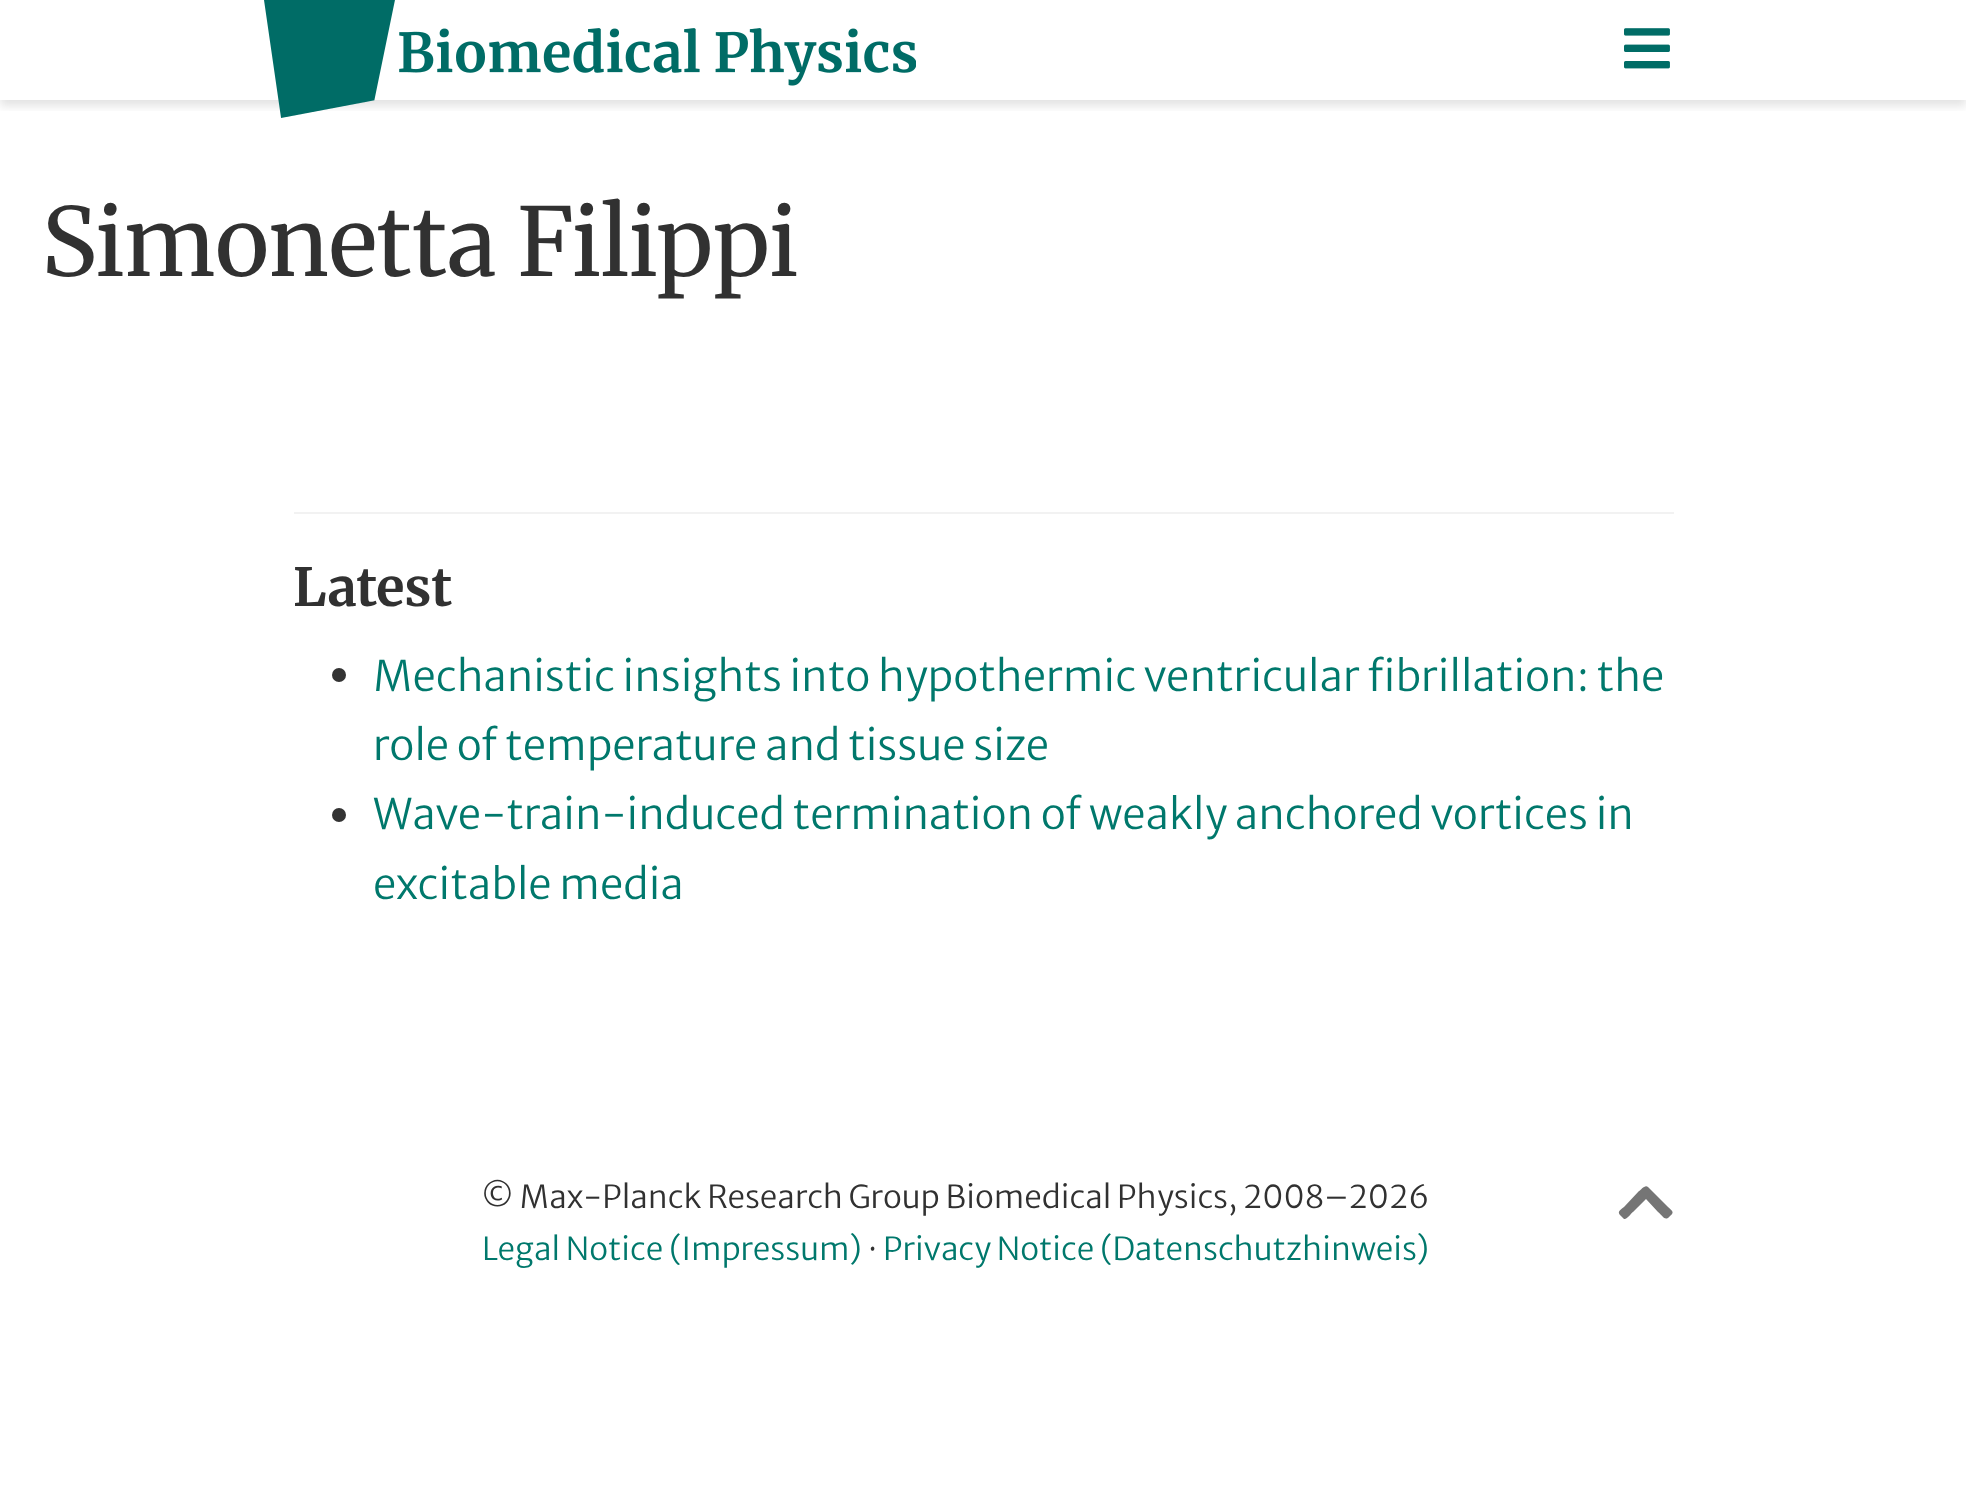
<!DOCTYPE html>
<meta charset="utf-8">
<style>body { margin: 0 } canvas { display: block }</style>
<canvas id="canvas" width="1966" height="1488"></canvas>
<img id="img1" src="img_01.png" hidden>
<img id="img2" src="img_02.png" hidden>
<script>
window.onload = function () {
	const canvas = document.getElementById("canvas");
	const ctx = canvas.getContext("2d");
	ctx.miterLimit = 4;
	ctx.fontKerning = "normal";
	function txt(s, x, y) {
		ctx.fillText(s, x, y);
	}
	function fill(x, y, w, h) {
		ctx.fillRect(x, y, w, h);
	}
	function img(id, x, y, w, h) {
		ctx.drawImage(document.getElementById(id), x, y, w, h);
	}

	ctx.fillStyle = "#FFFFFF";
	fill(0, 0, 1966, 1488);
	ctx.save();
	ctx.beginPath();
	ctx.rect(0, 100, 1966, 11);
	ctx.clip();
	ctx.fillStyle = "rgba(0, 0, 0, 0.11)";
	ctx.filter = "blur(5px)";
	ctx.beginPath();
	ctx.rect(0, 6, 1966, 100);
	ctx.fill();
	ctx.filter = "none";
	ctx.restore();
	img("img1", 264, 0, 652, 118);
	img("img2", 1624, 28, 46, 41);
	ctx.fillStyle = "#F2F2F2";
	fill(294, 512, 1380, 2);
	ctx.fillStyle = "#333333";
	ctx.beginPath();
	ctx.arc(339, 675, 7, 0, Math.PI * 2);
	ctx.fill();
	ctx.beginPath();
	ctx.arc(339, 815, 7, 0, Math.PI * 2);
	ctx.fill();
	ctx.fillStyle = "#757575";
	ctx.beginPath();
	ctx.moveTo(1648, 1187);
	ctx.lineTo(1668, 1207);
	ctx.bezierCurveTo(1672, 1211, 1675, 1212, 1670, 1216);
	ctx.bezierCurveTo(1665, 1222, 1663, 1216, 1658, 1212);
	ctx.lineTo(1646, 1199);
	ctx.lineTo(1633, 1212);
	ctx.bezierCurveTo(1631, 1213, 1627, 1220, 1624, 1219);
	ctx.lineTo(1621, 1216);
	ctx.bezierCurveTo(1617, 1212, 1619, 1211, 1624, 1207);
	ctx.lineTo(1639, 1191);
	ctx.bezierCurveTo(1641, 1190, 1645, 1184, 1648, 1187);
	ctx.closePath();
	ctx.fill();
	ctx.font = "94.5px Merriweather";
	ctx.fillStyle = "#313131";
	txt("Simonetta Filippi", 42, 276);
	ctx.font = "bold 52.5px Merriweather";
	txt("Latest", 293, 606);
	ctx.font = "300 42px Merriweather Sans";
	ctx.fillStyle = "#00786C";
	txt("Mechanistic insights into hypothermic ventricular fibrillation: the", 373, 691);
	txt("role of temperature and tissue size", 373, 760);
	txt("Wave-train-induced termination of weakly anchored vortices in", 373, 829);
	txt("excitable media", 373, 899);
	ctx.font = "300 31.5px Merriweather Sans";
	ctx.fillStyle = "#313131";
	txt("© Max-Planck Research Group Biomedical Physics, 2008–2026", 481, 1208);
	ctx.fillStyle = "#00786C";
	txt("Legal Notice (Impressum)", 482, 1260);
	ctx.fillStyle = "#313131";
	txt("·", 868, 1260);
	ctx.fillStyle = "#00786C";
	txt("Privacy Notice (Datenschutzhinweis)", 883, 1260);
};
</script>
